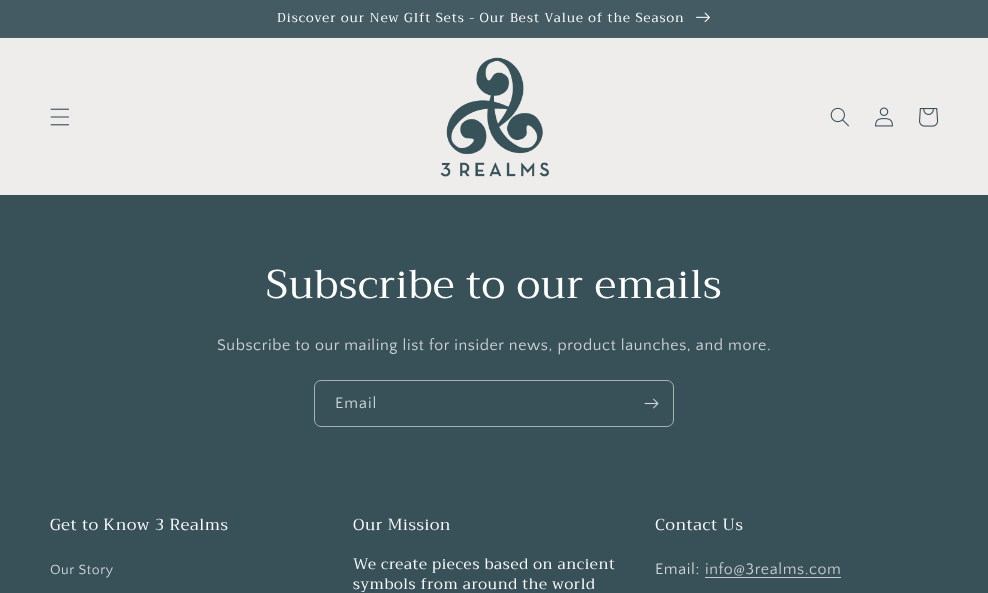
<!DOCTYPE html>
<meta charset="utf-8">
<style>body { margin: 0 } canvas { display: block }</style>
<canvas id="canvas" width="988" height="593"></canvas>
<img id="img1" src="img_01.png" hidden>
<img id="img2" src="img_02.png" hidden>
<img id="img3" src="img_03.png" hidden>
<img id="img4" src="img_04.png" hidden>
<img id="img5" src="img_05.png" hidden>
<img id="img6" src="img_06.png" hidden>
<img id="img7" src="img_07.png" hidden>
<script>
window.onload = function () {
	const canvas = document.getElementById("canvas");
	const ctx = canvas.getContext("2d");
	ctx.miterLimit = 4;
	ctx.fontKerning = "normal";
	function txt(s, x, y) {
		ctx.fillText(s, x, y);
	}
	function fill(x, y, w, h) {
		ctx.fillRect(x, y, w, h);
	}
	function img(id, x, y, w, h) {
		ctx.drawImage(document.getElementById(id), x, y, w, h);
	}

	ctx.fillStyle = "#EFECEC";
	fill(0, 0, 988, 593);
	ctx.fillStyle = "#485F66";
	fill(0, 37, 988, 1);
	ctx.fillStyle = "#445B63";
	fill(0, 0, 988, 37);
	img("img1", 696, 12, 14, 11);
	img("img2", 50, 108, 20, 18);
	img("img3", 440, 57, 110, 120);
	img("img4", 830, 107, 19, 20);
	img("img5", 875, 107, 18, 20);
	img("img6", 919, 108, 20, 19);
	ctx.fillStyle = "#385159";
	fill(0, 195, 988, 398);
	ctx.beginPath();
	ctx.roundRect(314.5, 380.5, 359, 46, 6.5);
	ctx.strokeStyle = "#A5B1B4";
	ctx.stroke();
	img("img7", 644, 398, 15, 11);
	ctx.fillStyle = "#C3CBCD";
	fill(705, 577, 136, 1);
	ctx.letterSpacing = "1px";
	ctx.font = "13px Trirong";
	ctx.fillStyle = "#FFFFFF";
	txt("Discover our New GIft Sets - Our Best Value of the Season", 277, 22);
	ctx.letterSpacing = "0.6px";
	ctx.font = "40px Trirong";
	txt("Subscribe to our emails", 266, 298);
	ctx.font = "16px Quattrocento Sans";
	ctx.fillStyle = "#CDD4D6";
	txt("Subscribe to our mailing list for insider news, product launches, and more.", 217, 350);
	ctx.letterSpacing = "1px";
	txt("Email", 335, 408);
	ctx.letterSpacing = "0.6px";
	ctx.font = "16px Trirong";
	ctx.fillStyle = "#FFFFFF";
	txt("Get to Know 3 Realms", 50, 530);
	ctx.font = "14px Quattrocento Sans";
	ctx.fillStyle = "#CDD4D6";
	txt("Our Story", 50, 574);
	ctx.font = "16px Trirong";
	ctx.fillStyle = "#FFFFFF";
	txt("Our Mission", 353, 530);
	ctx.font = "15px Trirong";
	txt("We create pieces based on ancient", 353, 569);
	txt("symbols from around the world", 353, 589);
	ctx.font = "16px Trirong";
	txt("Contact Us", 655, 530);
	ctx.font = "16px Quattrocento Sans";
	ctx.fillStyle = "#CDD4D6";
	txt("Email:", 655, 574);
	ctx.fillStyle = "#C3CBCD";
	txt("info@3realms.com", 705, 574);
};
</script>
